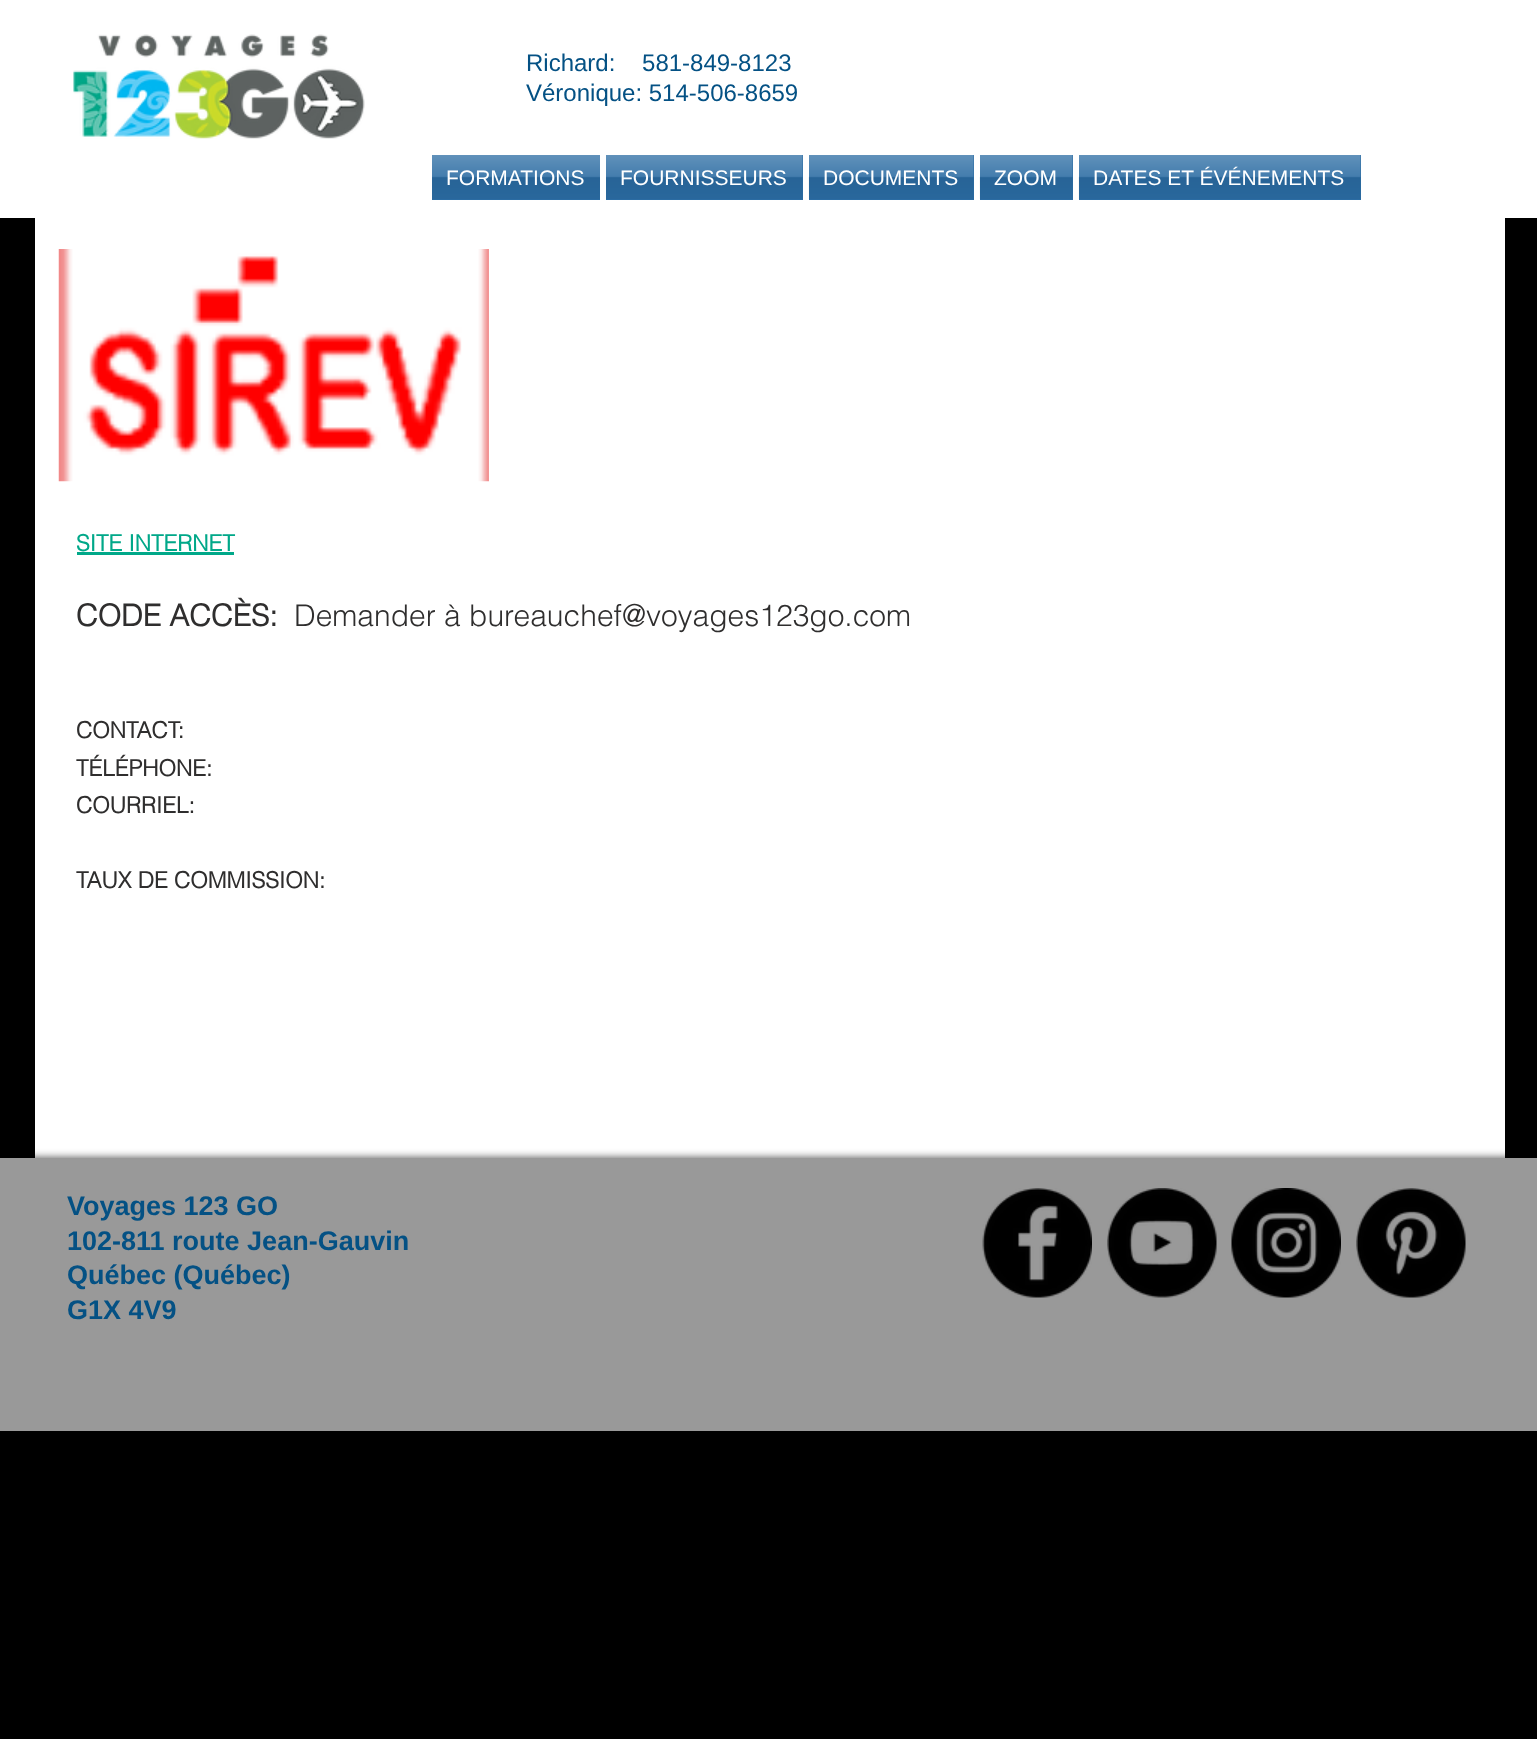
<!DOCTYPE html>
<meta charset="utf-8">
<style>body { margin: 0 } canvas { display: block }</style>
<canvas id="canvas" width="1537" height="1739"></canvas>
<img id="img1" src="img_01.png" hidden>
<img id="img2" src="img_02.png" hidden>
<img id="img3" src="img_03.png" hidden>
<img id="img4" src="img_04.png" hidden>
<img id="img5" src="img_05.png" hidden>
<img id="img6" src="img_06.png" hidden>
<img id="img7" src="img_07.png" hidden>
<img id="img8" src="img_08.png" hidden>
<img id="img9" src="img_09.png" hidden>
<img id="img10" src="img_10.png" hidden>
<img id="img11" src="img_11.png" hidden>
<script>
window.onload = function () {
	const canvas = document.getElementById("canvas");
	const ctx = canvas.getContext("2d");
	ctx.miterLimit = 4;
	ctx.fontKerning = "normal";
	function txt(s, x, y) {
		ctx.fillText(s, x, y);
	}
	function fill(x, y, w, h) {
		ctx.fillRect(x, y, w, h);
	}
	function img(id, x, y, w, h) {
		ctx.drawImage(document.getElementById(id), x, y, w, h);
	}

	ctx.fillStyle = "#000000";
	fill(0, 0, 1537, 1739);
	ctx.fillStyle = "#FFFFFF";
	fill(0, 0, 1537, 218);
	img("img1", 73, 34, 292, 105);
	ctx.fillStyle = "#2B6CA3";
	fill(432, 155, 168, 45);
	img("img2", 432, 155, 168, 44);
	fill(606, 155, 197, 45);
	img("img3", 606, 155, 197, 44);
	fill(809, 155, 165, 45);
	img("img4", 808, 155, 166, 44);
	fill(980, 155, 93, 45);
	img("img5", 979, 155, 94, 44);
	fill(1079, 155, 282, 45);
	img("img6", 1078, 155, 283, 44);
	ctx.fillStyle = "#FFFFFF";
	fill(35, 218, 1470, 940);
	img("img7", 58, 249, 431, 233);
	ctx.fillStyle = "#00A889";
	fill(77, 552, 157, 3);
	ctx.fillStyle = "rgba(0, 0, 0, 0.7)";
	ctx.filter = "blur(4px)";
	ctx.beginPath();
	ctx.rect(0, 1158, 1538, 273);
	ctx.fill();
	ctx.filter = "none";
	ctx.fillStyle = "#999999";
	fill(0, 1158, 1537, 273);
	img("img8", 982, 1188, 110, 110);
	img("img9", 1107, 1188, 110, 110);
	img("img10", 1231, 1188, 110, 110);
	img("img11", 1356, 1188, 110, 110);
	ctx.font = "24px Liberation Sans";
	ctx.fillStyle = "#045184";
	txt("Richard:    581-849-8123", 526, 71);
	txt("Véronique: 514-506-8659", 526, 101);
	ctx.font = "21px Liberation Sans";
	ctx.fillStyle = "#FFFFFF";
	txt("FORMATIONS", 446, 185);
	txt("FOURNISSEURS", 620, 185);
	txt("DOCUMENTS", 823, 185);
	txt("ZOOM", 994, 185);
	txt("DATES ET ÉVÉNEMENTS", 1093, 185);
	ctx.font = "bold 22.5px helvetica";
	ctx.fillStyle = "#00A889";
	txt("SITE INTERNET", 76, 551);
	ctx.font = "bold 30px helvetica";
	ctx.fillStyle = "#2F2E2E";
	txt("CODE ACCÈS:", 76, 626);
	ctx.font = "300 30px helvetica";
	txt("Demander à bureauchef@voyages123go.com", 294, 626);
	ctx.font = "bold 22.5px helvetica";
	txt("CONTACT:", 76, 738);
	txt("TÉLÉPHONE:", 76, 776);
	txt("COURRIEL:", 76, 813);
	txt("TAUX DE COMMISSION:", 76, 888);
	ctx.font = "bold 27px Liberation Sans";
	ctx.fillStyle = "#045184";
	txt("Voyages 123 GO", 67, 1215);
	txt("102-811 route Jean-Gauvin", 67, 1250);
	txt("Québec (Québec)", 67, 1284);
	txt("G1X 4V9", 67, 1319);
};
</script>
